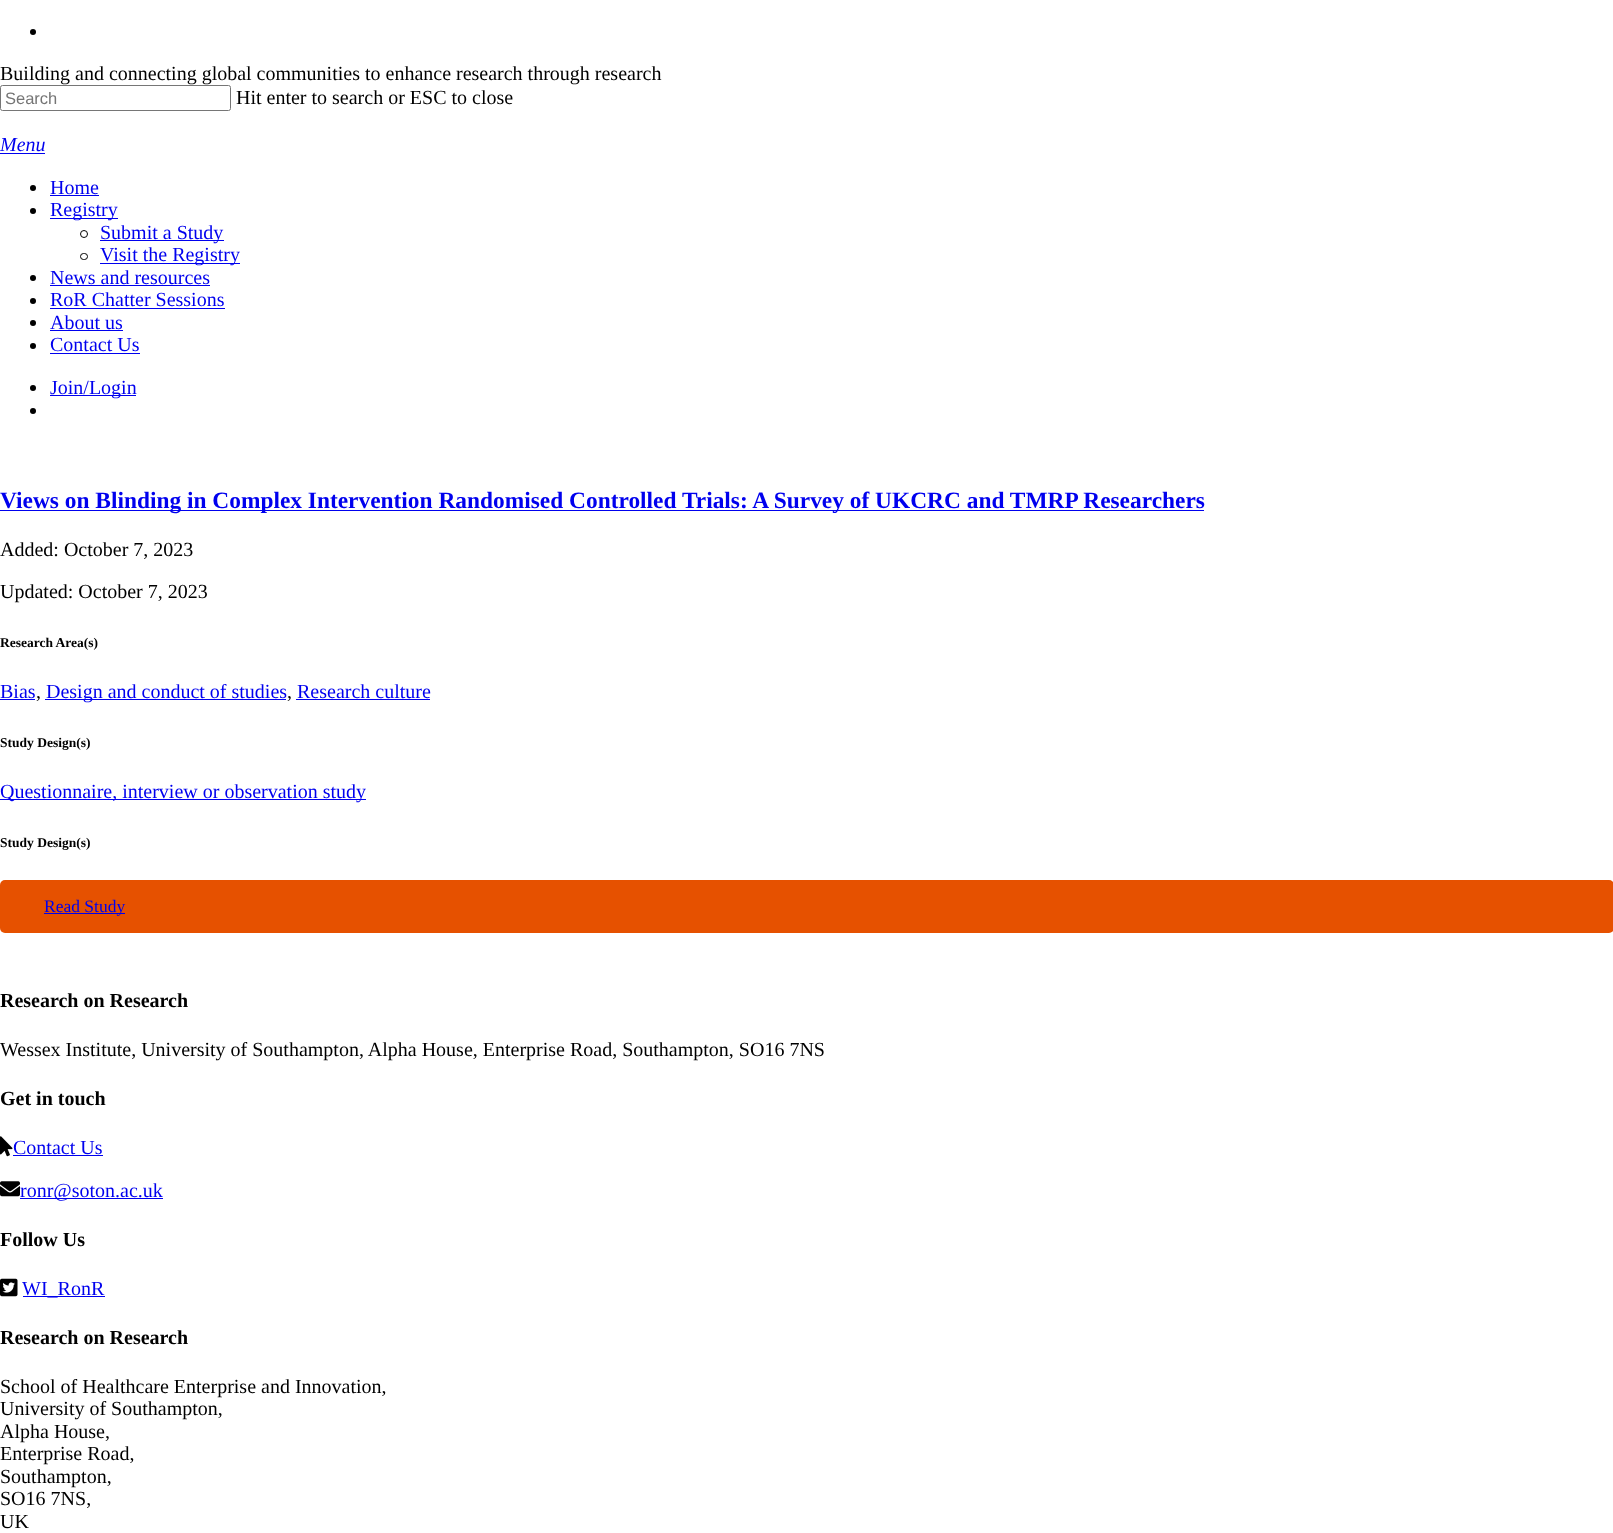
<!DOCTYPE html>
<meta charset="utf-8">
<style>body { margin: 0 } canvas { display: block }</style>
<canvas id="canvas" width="1613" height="1533"></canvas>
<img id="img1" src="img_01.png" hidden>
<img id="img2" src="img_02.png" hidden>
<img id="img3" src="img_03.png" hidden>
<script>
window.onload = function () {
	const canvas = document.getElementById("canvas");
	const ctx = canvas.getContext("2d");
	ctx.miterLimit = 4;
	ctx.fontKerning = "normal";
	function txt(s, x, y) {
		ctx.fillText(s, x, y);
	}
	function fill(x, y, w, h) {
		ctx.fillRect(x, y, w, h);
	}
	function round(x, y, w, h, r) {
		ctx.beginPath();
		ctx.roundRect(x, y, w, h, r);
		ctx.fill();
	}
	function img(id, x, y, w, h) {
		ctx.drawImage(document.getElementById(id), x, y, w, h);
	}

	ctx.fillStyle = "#FFFFFF";
	fill(0, 0, 1613, 1533);
	ctx.fillStyle = "#000000";
	ctx.beginPath();
	ctx.arc(33, 32, 3, 0, Math.PI * 2);
	ctx.fill();
	ctx.beginPath();
	ctx.roundRect(0.5, 85.5, 230, 25, 2);
	ctx.strokeStyle = "#767676";
	ctx.stroke();
	ctx.fillStyle = "#0000EE";
	fill(0, 153, 45, 1);
	ctx.fillStyle = "#000000";
	ctx.beginPath();
	ctx.arc(33, 188, 3, 0, Math.PI * 2);
	ctx.fill();
	ctx.fillStyle = "#0000EE";
	fill(50, 195, 49, 1);
	ctx.fillStyle = "#000000";
	ctx.beginPath();
	ctx.arc(33, 211, 3, 0, Math.PI * 2);
	ctx.fill();
	ctx.fillStyle = "#0000EE";
	fill(50, 218, 68, 1);
	ctx.beginPath();
	ctx.arc(84, 234, 3.5, 0, Math.PI * 2);
	ctx.strokeStyle = "#000000";
	ctx.stroke();
	fill(100, 240, 124, 1);
	ctx.beginPath();
	ctx.roundRect(80.5, 253.5, 7, 6, 3);
	ctx.stroke();
	fill(100, 263, 140, 1);
	ctx.fillStyle = "#000000";
	ctx.beginPath();
	ctx.arc(33, 278, 3, 0, Math.PI * 2);
	ctx.fill();
	ctx.fillStyle = "#0000EE";
	fill(50, 285, 160, 1);
	ctx.fillStyle = "#000000";
	ctx.beginPath();
	ctx.arc(33, 301, 3, 0, Math.PI * 2);
	ctx.fill();
	ctx.fillStyle = "#0000EE";
	fill(50, 308, 175, 1);
	ctx.fillStyle = "#000000";
	ctx.beginPath();
	ctx.arc(33, 323, 3, 0, Math.PI * 2);
	ctx.fill();
	ctx.fillStyle = "#0000EE";
	fill(50, 330, 73, 1);
	ctx.fillStyle = "#000000";
	ctx.beginPath();
	ctx.arc(33, 346, 3, 0, Math.PI * 2);
	ctx.fill();
	ctx.fillStyle = "#0000EE";
	fill(50, 353, 90, 1);
	ctx.fillStyle = "#000000";
	ctx.beginPath();
	ctx.arc(33, 388, 3, 0, Math.PI * 2);
	ctx.fill();
	ctx.fillStyle = "#0000EE";
	fill(50, 395, 86, 1);
	ctx.fillStyle = "#000000";
	ctx.beginPath();
	ctx.arc(33, 411, 3, 0, Math.PI * 2);
	ctx.fill();
	ctx.fillStyle = "#0000EE";
	fill(0, 510, 1204, 1);
	fill(0, 699, 35, 1);
	fill(45, 699, 241, 1);
	fill(296, 699, 134, 1);
	fill(0, 799, 366, 1);
	ctx.fillStyle = "#E65100";
	round(0, 880, 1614, 53, 5);
	ctx.fillStyle = "#0000EE";
	fill(44, 913, 81, 1);
	img("img1", 0, 1136, 13, 21);
	fill(13, 1155, 90, 1);
	img("img2", 0, 1181, 20, 16);
	fill(20, 1198, 143, 1);
	img("img3", 0, 1278, 18, 19);
	fill(23, 1296, 82, 1);
	ctx.font = "20px Liberation Serif";
	ctx.fillStyle = "#000000";
	txt("Building and connecting global communities to enhance research through research", 0, 80);
	ctx.font = "16.5px Liberation Sans";
	ctx.fillStyle = "#757575";
	txt("Search", 5, 104);
	ctx.font = "20px Liberation Serif";
	ctx.fillStyle = "#000000";
	txt("Hit enter to search or ESC to close", 236, 104);
	ctx.font = "italic 20px Liberation Serif";
	ctx.fillStyle = "#0000EE";
	txt("Menu", 0, 151);
	ctx.font = "20px Liberation Serif";
	txt("Home", 50, 194);
	txt("Registry", 50, 216);
	txt("Submit a Study", 100, 239);
	txt("Visit the Registry", 100, 261);
	txt("News and resources", 50, 284);
	txt("RoR Chatter Sessions", 50, 306);
	txt("About us", 50, 329);
	txt("Contact Us", 50, 351);
	txt("Join/Login", 50, 394);
	ctx.font = "bold 23.4px Liberation Serif";
	txt("Views on Blinding in Complex Intervention Randomised Controlled Trials: A Survey of UKCRC and TMRP Researchers", 0, 508);
	ctx.font = "20px Liberation Serif";
	ctx.fillStyle = "#000000";
	txt("Added: October 7, 2023", 0, 556);
	txt("Updated: October 7, 2023", 0, 598);
	ctx.font = "bold 13.5px Liberation Serif";
	txt("Research Area(s)", 0, 647);
	ctx.font = "20px Liberation Serif";
	ctx.fillStyle = "#0000EE";
	txt("Bias", 0, 698);
	ctx.fillStyle = "#000000";
	txt(",", 36, 698);
	ctx.fillStyle = "#0000EE";
	txt("Design and conduct of studies", 46, 698);
	ctx.fillStyle = "#000000";
	txt(",", 287, 698);
	ctx.fillStyle = "#0000EE";
	txt("Research culture", 297, 698);
	ctx.font = "bold 13.5px Liberation Serif";
	ctx.fillStyle = "#000000";
	txt("Study Design(s)", 0, 747);
	ctx.font = "20px Liberation Serif";
	ctx.fillStyle = "#0000EE";
	txt("Questionnaire, interview or observation study", 0, 798);
	ctx.font = "bold 13.5px Liberation Serif";
	ctx.fillStyle = "#000000";
	txt("Study Design(s)", 0, 847);
	ctx.font = "17.5px Liberation Serif";
	ctx.fillStyle = "#0000EE";
	txt("Read Study", 44, 912);
	ctx.font = "bold 20px Liberation Serif";
	ctx.fillStyle = "#000000";
	txt("Research on Research", 0, 1007);
	ctx.font = "20px Liberation Serif";
	txt("Wessex Institute, University of Southampton, Alpha House, Enterprise Road, Southampton, SO16 7NS", 0, 1056);
	ctx.font = "bold 20px Liberation Serif";
	txt("Get in touch", 0, 1105);
	ctx.font = "20px Liberation Serif";
	ctx.fillStyle = "#0000EE";
	txt("Contact Us", 13, 1154);
	txt("ronr@soton.ac.uk", 20, 1197);
	ctx.font = "bold 20px Liberation Serif";
	ctx.fillStyle = "#000000";
	txt("Follow Us", 0, 1246);
	ctx.font = "20px Liberation Serif";
	ctx.fillStyle = "#0000EE";
	txt("WI_RonR", 22, 1295);
	ctx.font = "bold 20px Liberation Serif";
	ctx.fillStyle = "#000000";
	txt("Research on Research", 0, 1344);
	ctx.font = "20px Liberation Serif";
	txt("School of Healthcare Enterprise and Innovation,", 0, 1393);
	txt("University of Southampton,", 0, 1415);
	txt("Alpha House,", 0, 1438);
	txt("Enterprise Road,", 0, 1460);
	txt("Southampton,", 0, 1483);
	txt("SO16 7NS,", 0, 1505);
	txt("UK", 0, 1528);
};
</script>
